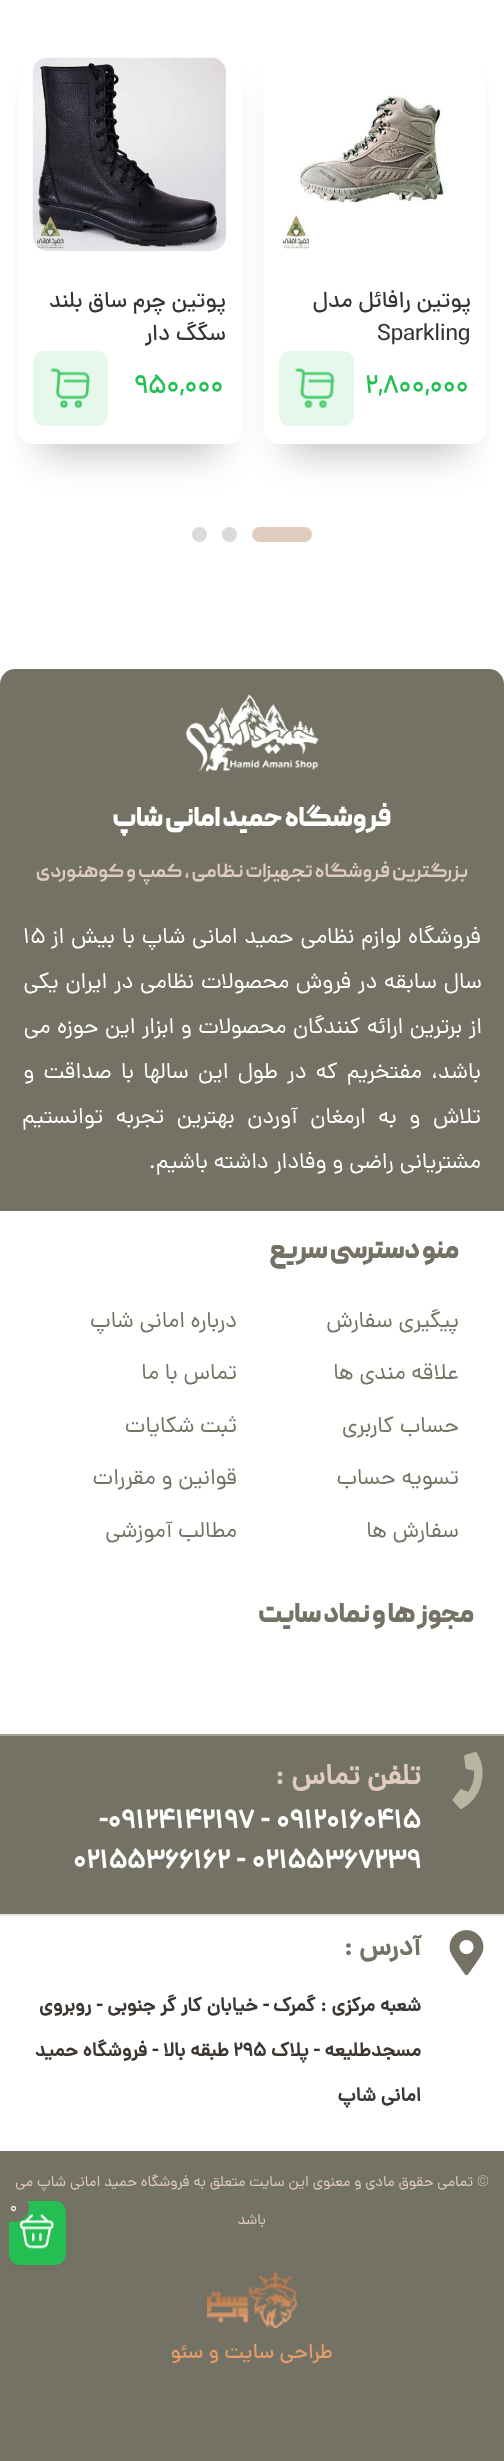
<!DOCTYPE html>
<meta charset="utf-8">
<style>body { margin: 0 } canvas { display: block }</style>
<canvas id="canvas" width="504" height="2461"></canvas>
<img id="img1" src="img_01.png" hidden>
<img id="img2" src="img_02.png" hidden>
<img id="img3" src="img_03.png" hidden>
<img id="img4" src="img_04.png" hidden>
<img id="img5" src="img_05.png" hidden>
<img id="img6" src="img_06.png" hidden>
<img id="img7" src="img_07.png" hidden>
<img id="img8" src="img_08.png" hidden>
<img id="img9" src="img_09.png" hidden>
<script>
window.onload = function () {
	const canvas = document.getElementById("canvas");
	const ctx = canvas.getContext("2d");
	ctx.miterLimit = 4;
	ctx.fontKerning = "normal";
	function txt(s, x, y) {
		ctx.fillText(s, x, y);
	}
	function fill(x, y, w, h) {
		ctx.fillRect(x, y, w, h);
	}
	function round(x, y, w, h, r) {
		ctx.beginPath();
		ctx.roundRect(x, y, w, h, r);
		ctx.fill();
	}
	function img(id, x, y, w, h) {
		ctx.drawImage(document.getElementById(id), x, y, w, h);
	}

	ctx.fillStyle = "#FFFFFF";
	fill(0, 0, 504, 2461);
	ctx.save();
	ctx.beginPath();
	ctx.rect(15, 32, 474, 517);
	ctx.clip();
	ctx.fillStyle = "rgba(0, 0, 0, 0.26)";
	ctx.filter = "blur(19px)";
	ctx.beginPath();
	ctx.rect(287, 92, 177, 360);
	ctx.fill();
	ctx.filter = "none";
	ctx.restore();
	round(264, 39, 222, 405, 15);
	img("img1", 280, 94, 164, 155);
	ctx.fillStyle = "#E5F8EB";
	round(279, 351, 75, 75, 11);
	img("img2", 295, 368, 40, 41);
	ctx.save();
	ctx.beginPath();
	ctx.rect(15, 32, 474, 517);
	ctx.clip();
	ctx.fillStyle = "rgba(0, 0, 0, 0.26)";
	ctx.filter = "blur(19px)";
	ctx.beginPath();
	ctx.rect(41, 92, 178, 360);
	ctx.fill();
	ctx.filter = "none";
	ctx.restore();
	ctx.fillStyle = "#FFFFFF";
	round(18, 39, 224, 405, 15);
	img("img3", 32, 57, 194, 194);
	ctx.fillStyle = "#E5F8EB";
	round(33, 351, 75, 75, 11);
	img("img4", 51, 368, 39, 41);
	ctx.fillStyle = "#E0CCBE";
	round(252, 527, 60, 15, 7.5);
	ctx.fillStyle = "#DADADA";
	ctx.beginPath();
	ctx.arc(229.5, 534.5, 7.5, 0, Math.PI * 2);
	ctx.fill();
	ctx.beginPath();
	ctx.arc(199.5, 534.5, 7.5, 0, Math.PI * 2);
	ctx.fill();
	ctx.fillStyle = "#747264";
	fill(0, 2151, 504, 310);
	ctx.fillStyle = "rgba(0, 0, 0, 0.1)";
	ctx.filter = "blur(5px)";
	ctx.beginPath();
	ctx.roundRect(14, 2207, 48, 55, 6);
	ctx.fill();
	ctx.filter = "none";
	ctx.fillStyle = "#23BF53";
	round(9, 2201, 57, 64, 11);
	img("img5", 20, 2214, 34, 35);
	ctx.fillStyle = "#747264";
	ctx.beginPath();
	ctx.arc(14.5, 2207.5, 14.5, 0, Math.PI * 2);
	ctx.fill();
	ctx.beginPath();
	ctx.roundRect(0, 669, 504, 542, [15, 15, 0, 0]);
	ctx.fill();
	img("img6", 185, 694, 134, 78);
	fill(0, 1736, 504, 178);
	ctx.fillStyle = "#A4A18E";
	fill(0, 1734, 504, 2);
	img("img7", 452, 1751, 31, 58);
	ctx.fillStyle = "#E3E3E0";
	fill(0, 1914, 504, 2);
	img("img8", 449, 1930, 35, 46);
	img("img9", 207, 2271, 90, 57);
	ctx.direction = "rtl";
	ctx.font = "500 22.5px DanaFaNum";
	ctx.fillStyle = "#333333";
	txt("پوتین رافائل مدل", 471, 307);
	ctx.direction = "ltr";
	txt("Sparkling", 377, 340);
	ctx.letterSpacing = "-0.25px";
	ctx.font = "500 27px DanaFaNum";
	ctx.fillStyle = "#23BF53";
	txt("2,800,000", 365, 393);
	ctx.letterSpacing = "0px";
	ctx.direction = "rtl";
	ctx.font = "500 22.5px DanaFaNum";
	ctx.fillStyle = "#333333";
	txt("پوتین چرم ساق بلند", 226, 307);
	txt("سگگ دار", 226, 340);
	ctx.letterSpacing = "-0.25px";
	ctx.direction = "ltr";
	ctx.font = "500 27px DanaFaNum";
	ctx.fillStyle = "#23BF53";
	txt("950,000", 134, 393);
	ctx.letterSpacing = "0px";
	ctx.font = "15px DanaFaNum";
	ctx.fillStyle = "#FFFFFF";
	txt("0", 10, 2212);
	ctx.direction = "rtl";
	ctx.font = "900 27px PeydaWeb";
	txt("فروشگاه حمید امانی شاپ", 391, 826);
	ctx.font = "bold 19.5px PeydaWeb";
	ctx.fillStyle = "#E0CCBE";
	txt("بزرگترین فروشگاه تجهیزات نظامی ، کمپ و کوهنوردی", 468, 877);
	ctx.wordSpacing = "1px";
	ctx.font = "22.5px DanaFaNum";
	ctx.fillStyle = "#FFFFFF";
	txt("فروشگاه لوازم نظامی حمید امانی شاپ با بیش از", 481, 943);
	ctx.wordSpacing = "0px";
	ctx.direction = "ltr";
	txt("15", 23, 943);
	ctx.wordSpacing = "1px";
	ctx.direction = "rtl";
	txt("سال سابقه در فروش محصولات نظامی در ایران یکی", 482, 988);
	ctx.wordSpacing = "0.75px";
	txt("از برترین ارائه کنندگان محصولات و ابزار این حوزه می", 482, 1033);
	ctx.wordSpacing = "3.5px";
	txt("باشد، مفتخریم که در طول این سالها با صداقت و", 481, 1078);
	ctx.wordSpacing = "6.75px";
	txt("تلاش و به ارمغان آوردن بهترین تجربه توانستیم", 481, 1123);
	ctx.wordSpacing = "0px";
	txt("مشتریانی راضی و وفادار داشته باشیم.", 481, 1168);
	ctx.font = "900 27px PeydaWeb";
	ctx.fillStyle = "#747264";
	txt("منو دسترسی سریع", 459, 1258);
	ctx.font = "22.5px DanaFaNum";
	txt("پیگیری سفارش", 459, 1327);
	txt("علاقه مندی ها", 459, 1379);
	txt("حساب کاربری", 459, 1432);
	txt("تسویه حساب", 459, 1484);
	txt("سفارش ها", 459, 1537);
	txt("درباره امانی شاپ", 237, 1327);
	txt("تماس با ما", 237, 1379);
	txt("ثبت شکایات", 237, 1432);
	txt("قوانین و مقررات", 237, 1484);
	txt("مطالب آموزشی", 237, 1537);
	ctx.font = "900 27px PeydaWeb";
	txt("مجوز ها و نماد سایت", 474, 1622);
	ctx.font = "bold 28.5px DanaFaNum";
	ctx.fillStyle = "#E0CCBE";
	txt("تلفن تماس :", 421, 1784);
	ctx.direction = "ltr";
	ctx.font = "bold 27px DanaFaNum";
	ctx.fillStyle = "#FFFFFF";
	txt("-۰۹۱۲۴۱۴۲۱۹۷ - ۰۹۱۲۰۱۶۰۴۱۵", 99, 1828);
	txt("۰۲۱۵۵۳۶۶۱۶۲ - ۰۲۱۵۵۳۶۷۲۳۹", 73, 1868);
	ctx.direction = "rtl";
	ctx.fillStyle = "#747264";
	txt("آدرس :", 421, 1955);
	ctx.font = "bold 19.5px DanaFaNum";
	ctx.fillStyle = "#3C3633";
	txt("شعبه مرکزی : گمرک", 421, 2011);
	txt("- خیابان کار گر جنوبی - روبروی", 269, 2011);
	txt("مسجدطلیعه - پلاک", 421, 2056);
	ctx.direction = "ltr";
	txt("۲۹5", 233, 2056);
	ctx.direction = "rtl";
	txt("طبقه بالا - فروشگاه حمید", 229, 2056);
	txt("امانی شاپ", 421, 2101);
	ctx.font = "15px DanaFaNum";
	ctx.fillStyle = "#E0CCBE";
	txt("© تمامی حقوق مادی و معنوی این سایت متعلق به فروشگاه حمید امانی شاپ می", 489, 2186);
	txt("باشد", 266, 2224);
	ctx.font = "500 21px DanaFaNum";
	ctx.fillStyle = "#E49C6C";
	txt("طراحی سایت و سئو", 333, 2358);
};
</script>
